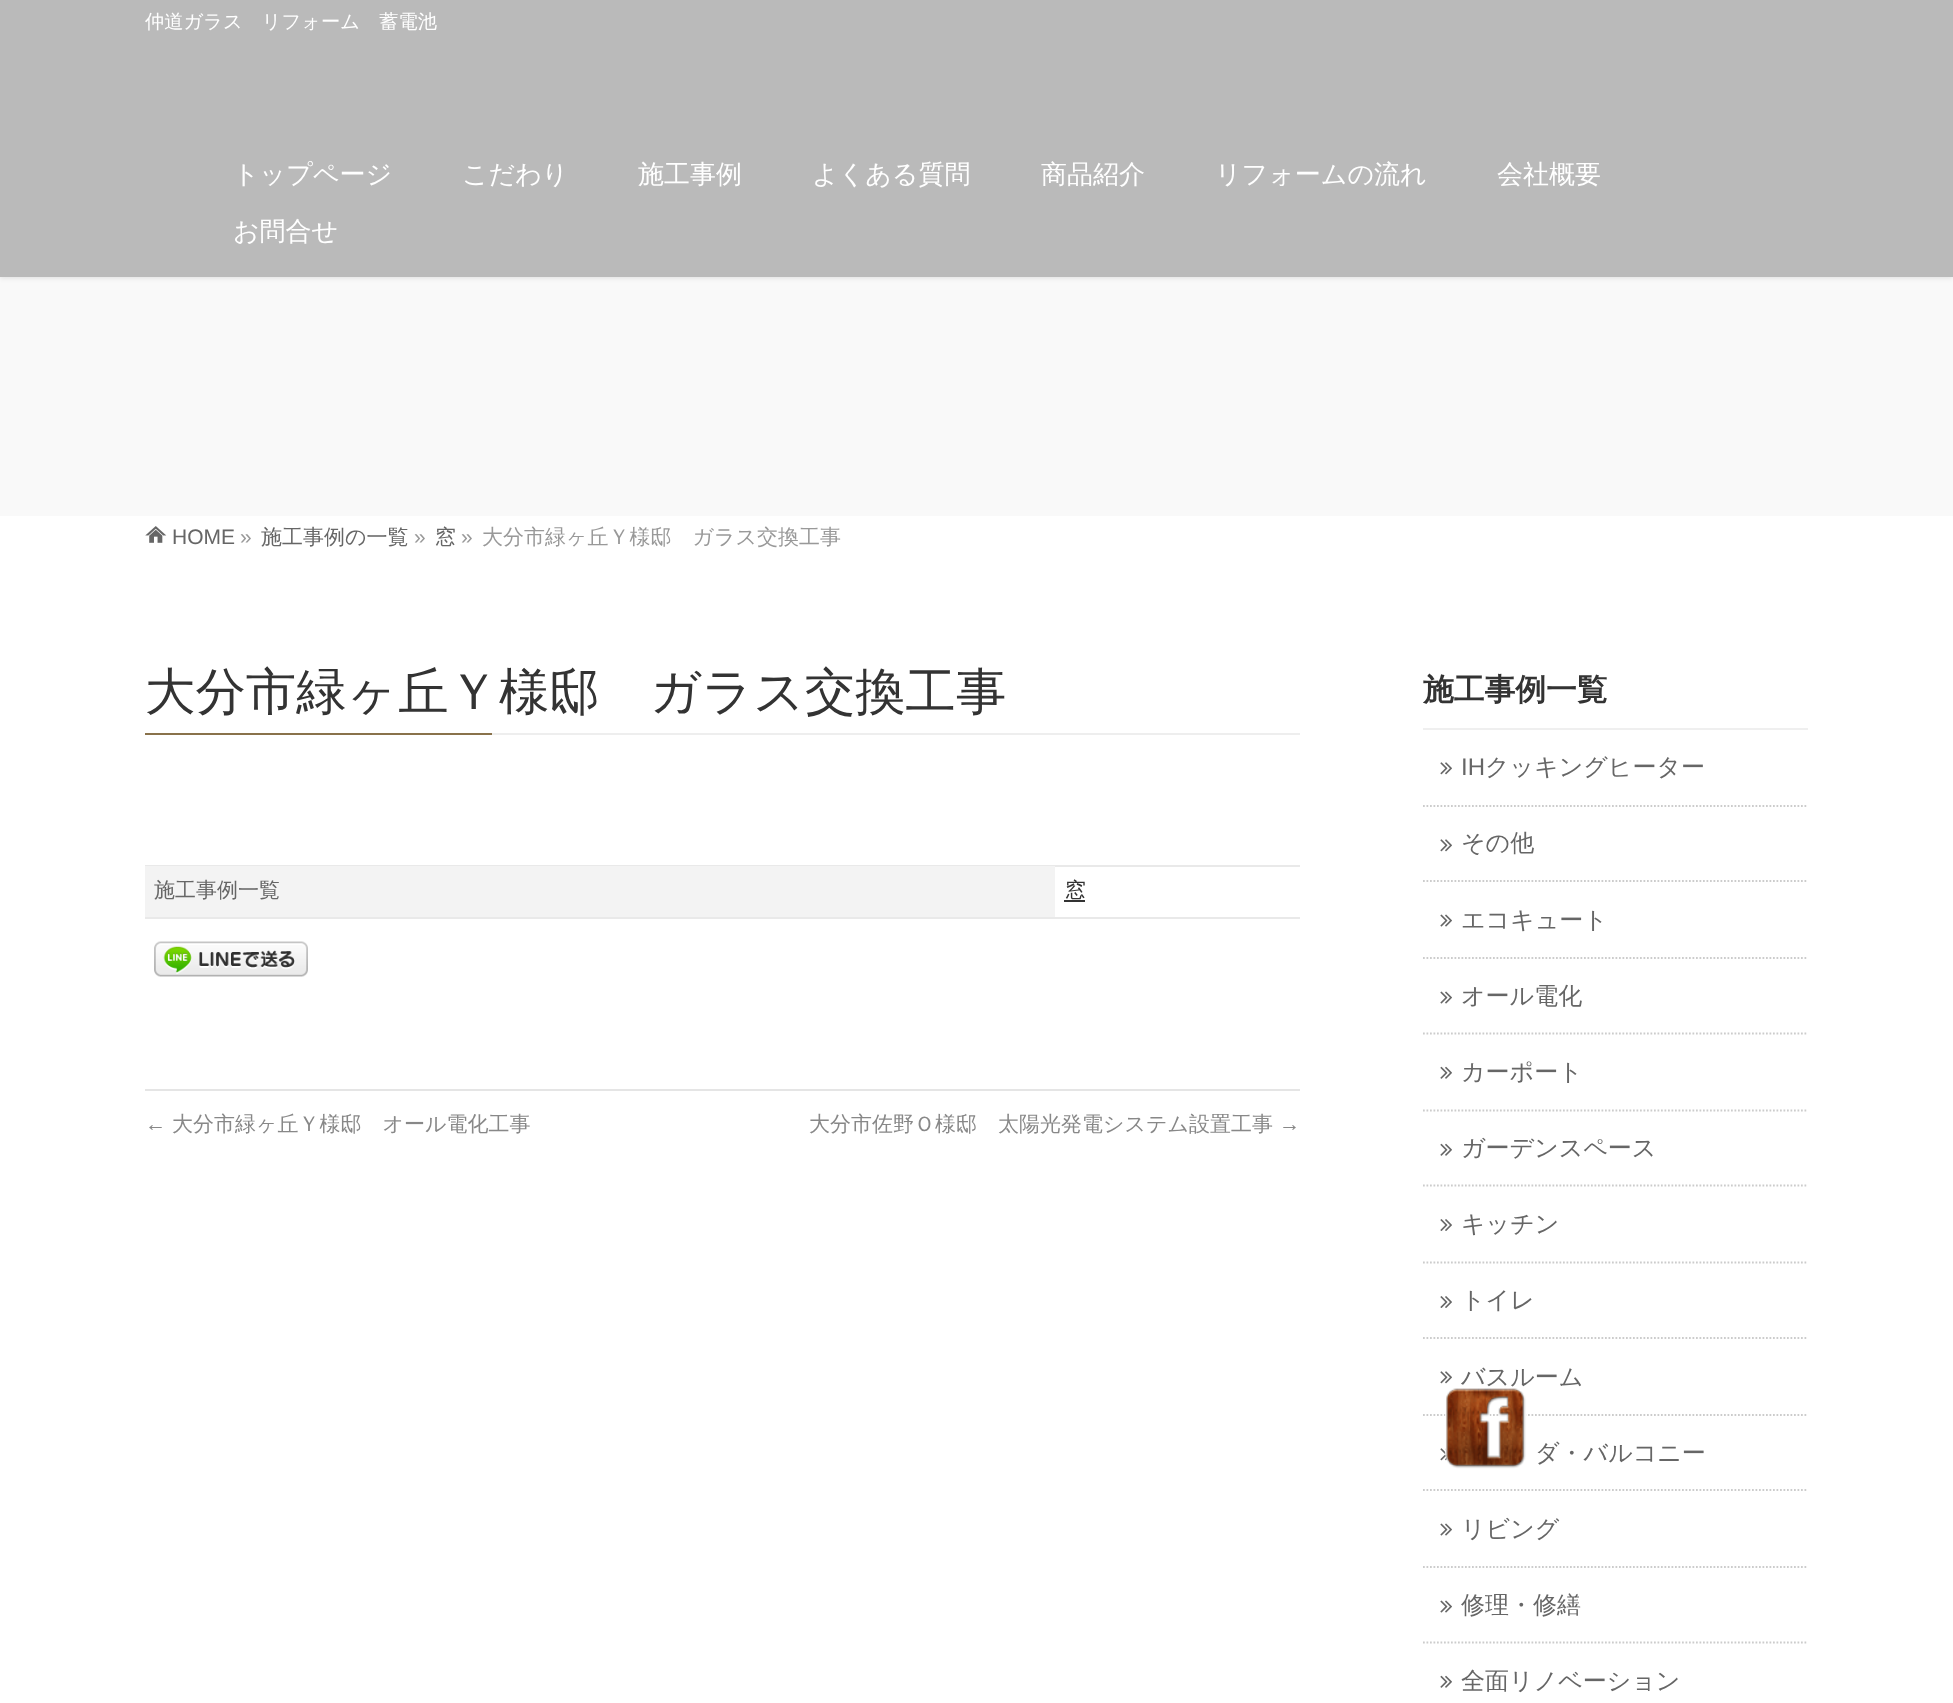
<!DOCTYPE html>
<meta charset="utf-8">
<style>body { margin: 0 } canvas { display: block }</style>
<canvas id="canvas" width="1953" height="1703"></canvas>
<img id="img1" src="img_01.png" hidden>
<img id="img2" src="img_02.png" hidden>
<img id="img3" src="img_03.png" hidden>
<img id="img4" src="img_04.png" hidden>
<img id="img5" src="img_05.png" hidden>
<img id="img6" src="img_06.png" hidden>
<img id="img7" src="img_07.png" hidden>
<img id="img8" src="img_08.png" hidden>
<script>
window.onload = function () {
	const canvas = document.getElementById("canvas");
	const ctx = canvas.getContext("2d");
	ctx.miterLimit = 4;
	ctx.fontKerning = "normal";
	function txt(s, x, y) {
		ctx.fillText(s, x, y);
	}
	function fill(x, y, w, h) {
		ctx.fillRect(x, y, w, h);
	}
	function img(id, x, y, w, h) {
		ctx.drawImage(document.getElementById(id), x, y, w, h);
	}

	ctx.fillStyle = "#FFFFFF";
	fill(0, 0, 1953, 1703);
	ctx.fillStyle = "#F9F9F9";
	fill(0, 0, 1953, 516);
	ctx.save();
	ctx.beginPath();
	ctx.moveTo(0, 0);
	ctx.lineTo(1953, 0);
	ctx.lineTo(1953, 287);
	ctx.lineTo(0, 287);
	ctx.closePath();
	ctx.moveTo(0, 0);
	ctx.lineTo(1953, 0);
	ctx.lineTo(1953, 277);
	ctx.lineTo(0, 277);
	ctx.closePath();
	ctx.clip("evenodd");
	ctx.fillStyle = "rgba(0, 0, 0, 0.1)";
	ctx.filter = "blur(2.5px)";
	ctx.beginPath();
	ctx.rect(0, 2, 1953, 276);
	ctx.fill();
	ctx.filter = "none";
	ctx.restore();
	ctx.fillStyle = "rgba(0, 0, 0, 0.25)";
	fill(0, 0, 1953, 277);
	img("img1", 145, 526, 22, 17);
	ctx.fillStyle = "#EEEEEE";
	fill(492, 733, 808, 2);
	ctx.fillStyle = "#89724B";
	fill(145, 733, 347, 2);
	ctx.fillStyle = "#E9E9E9";
	fill(145, 865, 1155, 2);
	ctx.fillStyle = "#F3F3F3";
	fill(145, 866, 910, 51);
	ctx.fillStyle = "#E9E9E9";
	fill(145, 917, 1155, 2);
	ctx.fillStyle = "#333333";
	fill(1064, 900, 21, 2);
	img("img2", 154, 941, 154, 36);
	ctx.fillStyle = "#E5E5E5";
	fill(145, 1089, 1155, 2);
	ctx.fillStyle = "#EFEFEF";
	fill(1423, 728, 385, 2);
	ctx.beginPath();
	ctx.moveTo(1423, 806);
	ctx.lineTo(1808, 806);
	ctx.strokeStyle = "#CCCCCC";
	ctx.lineWidth = 1.8;
	ctx.setLineDash([1.75, 1.75]);
	ctx.stroke();
	img("img3", 1440, 762, 12, 13);
	ctx.beginPath();
	ctx.moveTo(1423, 881);
	ctx.lineTo(1808, 881);
	ctx.stroke();
	img("img3", 1440, 839, 12, 13);
	ctx.beginPath();
	ctx.moveTo(1423, 958);
	ctx.lineTo(1808, 958);
	ctx.stroke();
	img("img4", 1440, 914, 12, 13);
	ctx.beginPath();
	ctx.moveTo(1423, 1033.5);
	ctx.lineTo(1808, 1033.5);
	ctx.stroke();
	img("img4", 1440, 991, 12, 13);
	ctx.beginPath();
	ctx.moveTo(1423, 1110.5);
	ctx.lineTo(1808, 1110.5);
	ctx.stroke();
	img("img5", 1440, 1066, 12, 13);
	ctx.beginPath();
	ctx.moveTo(1423, 1185.5);
	ctx.lineTo(1808, 1185.5);
	ctx.stroke();
	img("img5", 1440, 1143, 12, 13);
	ctx.beginPath();
	ctx.moveTo(1423, 1262.5);
	ctx.lineTo(1808, 1262.5);
	ctx.stroke();
	img("img6", 1440, 1219, 12, 12);
	ctx.beginPath();
	ctx.moveTo(1423, 1338);
	ctx.lineTo(1808, 1338);
	ctx.stroke();
	img("img6", 1440, 1296, 12, 12);
	ctx.beginPath();
	ctx.moveTo(1423, 1415);
	ctx.lineTo(1808, 1415);
	ctx.stroke();
	img("img3", 1440, 1371, 12, 13);
	ctx.beginPath();
	ctx.moveTo(1423, 1490);
	ctx.lineTo(1808, 1490);
	ctx.stroke();
	img("img7", 1440, 1448, 7, 13);
	ctx.beginPath();
	ctx.moveTo(1423, 1567);
	ctx.lineTo(1808, 1567);
	ctx.stroke();
	img("img4", 1440, 1523, 12, 13);
	ctx.beginPath();
	ctx.moveTo(1423, 1642.5);
	ctx.lineTo(1808, 1642.5);
	ctx.stroke();
	img("img4", 1440, 1600, 12, 13);
	img("img5", 1440, 1675, 12, 13);
	img("img8", 1444, 1388, 83, 81);
	ctx.font = "500 19.25px WenQuanYi Zen Hei";
	ctx.fillStyle = "#FFFFFF";
	txt("仲道ガラス　リフォーム　蓄電池", 145, 28);
	ctx.font = "500 26px WenQuanYi Zen Hei";
	txt("トップページ", 233, 183);
	txt("こだわり", 462, 183);
	txt("施工事例", 638, 183);
	txt("よくある質問", 812, 183);
	txt("商品紹介", 1041, 183);
	txt("リフォームの流れ", 1215, 183);
	txt("会社概要", 1497, 183);
	txt("お問合せ", 233, 240);
	ctx.font = "21px Liberation Sans";
	ctx.fillStyle = "#666666";
	txt("HOME", 172, 544);
	ctx.fillStyle = "#999999";
	txt("»", 240, 544);
	ctx.font = "500 21px WenQuanYi Zen Hei";
	ctx.fillStyle = "#666666";
	txt("施工事例の一覧", 261, 544);
	ctx.font = "21px Liberation Sans";
	ctx.fillStyle = "#999999";
	txt("»", 414, 544);
	ctx.font = "500 21px WenQuanYi Zen Hei";
	ctx.fillStyle = "#666666";
	txt("窓", 435, 544);
	ctx.font = "21px Liberation Sans";
	ctx.fillStyle = "#999999";
	txt("»", 461, 544);
	ctx.font = "500 21px WenQuanYi Zen Hei";
	txt("大分市緑ヶ丘Ｙ様邸　ガラス交換工事", 482, 544);
	ctx.font = "500 50.4px WenQuanYi Zen Hei";
	ctx.fillStyle = "#333333";
	txt("大分市緑ヶ丘Ｙ様邸　ガラス交換工事", 145, 709);
	ctx.font = "500 21px WenQuanYi Zen Hei";
	ctx.fillStyle = "#666666";
	txt("施工事例一覧", 154, 897);
	ctx.fillStyle = "#333333";
	txt("窓", 1065, 897);
	ctx.font = "21px Liberation Sans";
	ctx.fillStyle = "#888888";
	txt("←", 145, 1131);
	ctx.font = "500 21px WenQuanYi Zen Hei";
	txt("大分市緑ヶ丘Ｙ様邸　オール電化工事", 172, 1131);
	txt("大分市佐野Ｏ様邸　太陽光発電システム設置工事", 809, 1131);
	ctx.font = "21px Liberation Sans";
	txt("→", 1279, 1131);
	ctx.font = "bold 30.75px WenQuanYi Zen Hei";
	ctx.fillStyle = "#333333";
	txt("施工事例一覧", 1423, 700);
	ctx.font = "24px Liberation Sans";
	ctx.fillStyle = "#666666";
	txt("IH", 1461, 775);
	ctx.font = "500 24px WenQuanYi Zen Hei";
	txt("クッキングヒーター", 1485, 775);
	txt("その他", 1461, 851);
	txt("エコキュート", 1461, 928);
	txt("オール電化", 1461, 1004);
	txt("カーポート", 1461, 1080);
	txt("ガーデンスペース", 1461, 1156);
	txt("キッチン", 1461, 1232);
	txt("トイレ", 1461, 1308);
	txt("バスルーム", 1461, 1385);
	txt("ダ・バルコニー", 1535, 1461);
	txt("リビング", 1461, 1537);
	txt("修理・修繕", 1461, 1613);
	txt("全面リノベーション", 1461, 1689);
};
</script>
